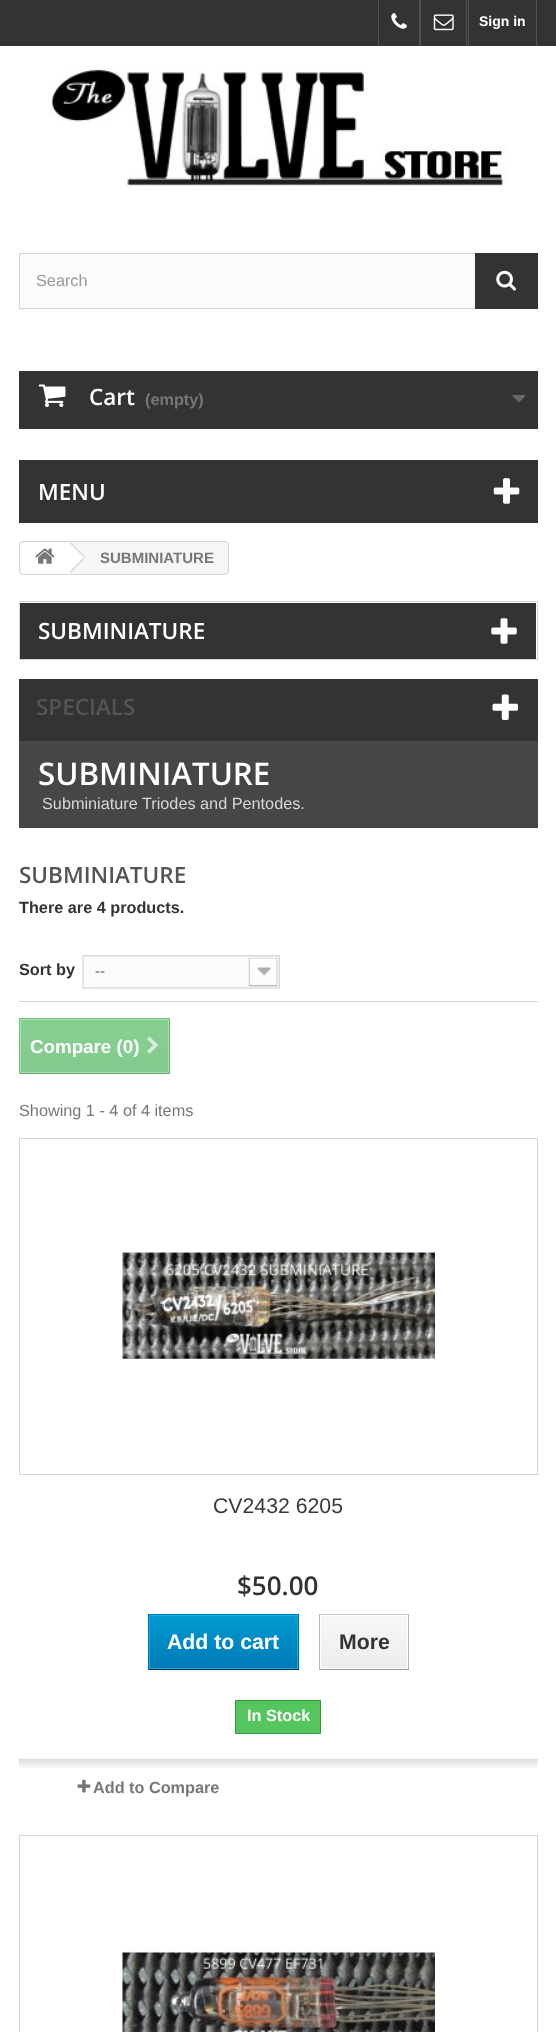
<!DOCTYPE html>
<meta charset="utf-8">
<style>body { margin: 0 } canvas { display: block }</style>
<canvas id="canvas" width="556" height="2032"></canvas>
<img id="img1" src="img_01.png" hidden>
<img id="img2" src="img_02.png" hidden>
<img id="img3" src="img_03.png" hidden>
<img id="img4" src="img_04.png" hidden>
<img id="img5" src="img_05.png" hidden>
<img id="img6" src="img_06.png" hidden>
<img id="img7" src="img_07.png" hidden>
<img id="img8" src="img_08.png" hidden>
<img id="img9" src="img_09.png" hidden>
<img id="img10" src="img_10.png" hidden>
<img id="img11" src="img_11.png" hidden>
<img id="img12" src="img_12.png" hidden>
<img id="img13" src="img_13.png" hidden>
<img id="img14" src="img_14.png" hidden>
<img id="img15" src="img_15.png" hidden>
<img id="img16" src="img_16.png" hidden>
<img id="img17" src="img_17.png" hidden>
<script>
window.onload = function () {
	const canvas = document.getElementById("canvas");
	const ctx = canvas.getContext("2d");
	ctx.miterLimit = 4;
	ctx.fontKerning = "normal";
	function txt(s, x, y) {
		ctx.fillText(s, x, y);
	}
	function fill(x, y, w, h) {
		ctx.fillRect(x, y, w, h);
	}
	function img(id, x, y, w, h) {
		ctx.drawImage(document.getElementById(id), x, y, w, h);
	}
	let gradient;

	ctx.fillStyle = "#FFFFFF";
	fill(0, 0, 556, 2032);
	ctx.fillStyle = "#333333";
	fill(0, 0, 556, 46);
	ctx.fillStyle = "#515151";
	fill(419, 0, 2, 46);
	fill(378, 0, 1, 46);
	img("img1", 391, 13, 16, 16);
	fill(466, 0, 1, 46);
	img("img2", 433, 14, 21, 17);
	fill(536, 0, 1, 46);
	fill(468, 0, 1, 46);
	img("img3", 49, 65, 458, 121);
	ctx.fillStyle = "#FBFBFB";
	fill(20, 254, 455, 54);
	ctx.strokeStyle = "#D6D4D4";
	ctx.strokeRect(19.5, 253.5, 518, 55);
	ctx.fillStyle = "#333333";
	fill(475, 253, 63, 56);
	img("img4", 496, 270, 20, 21);
	fill(19, 371, 519, 58);
	img("img5", 38, 384, 28, 23);
	img("img6", 512, 395, 14, 7);
	fill(19, 460, 519, 63);
	img("img7", 493, 478, 27, 26);
	ctx.fillStyle = "#F6F6F6";
	ctx.beginPath();
	ctx.roundRect(19.5, 541.5, 209, 33, 3.5);
	ctx.fill();
	ctx.stroke();
	ctx.fillStyle = "#FFFFFF";
	ctx.beginPath();
	ctx.roundRect(21, 543, 48, 31, [4, 0, 0, 4]);
	ctx.fill();
	img("img8", 35, 548, 20, 16);
	ctx.beginPath();
	ctx.moveTo(72, 543.5);
	ctx.lineTo(71.5, 543);
	ctx.lineTo(68.5, 543);
	ctx.lineTo(68, 543.5);
	ctx.lineTo(56, 555.5);
	ctx.bezierCurveTo(55, 556.5, 55, 558.5, 56, 559.5);
	ctx.lineTo(68, 571.5);
	ctx.bezierCurveTo(69, 572.5, 71, 572.5, 72, 571.5);
	ctx.lineTo(84, 559.5);
	ctx.bezierCurveTo(85, 558.5, 85, 556.5, 84, 555.5);
	ctx.closePath();
	ctx.fill();
	ctx.fillStyle = "#D6D4D4";
	ctx.beginPath();
	ctx.moveTo(71, 542.5);
	ctx.lineTo(85, 556.5);
	ctx.lineTo(84, 557.5);
	ctx.lineTo(70, 543.5);
	ctx.closePath();
	ctx.fill();
	ctx.beginPath();
	ctx.moveTo(84, 557.5);
	ctx.lineTo(85, 558.5);
	ctx.lineTo(71, 572.5);
	ctx.lineTo(70, 571.5);
	ctx.closePath();
	ctx.fill();
	ctx.strokeRect(19.5, 601.5, 518, 58);
	ctx.fillStyle = "#333333";
	fill(20, 603, 516, 56);
	img("img9", 491, 618, 26, 26);
	fill(19, 679, 519, 62);
	img("img10", 492, 694, 27, 26);
	ctx.fillStyle = "#464646";
	fill(19, 741, 519, 87);
	ctx.fillStyle = "#D6D4D4";
	fill(19, 1001, 519, 1);
	img("img11", 82, 955, 14, 34);
	img("img12", 95, 955, 185, 34);
	gradient = ctx.createLinearGradient(94, 1019, 94, 1073);
	gradient.addColorStop(0, "#85D090");
	gradient.addColorStop(1, "#84C98F");
	ctx.fillStyle = gradient;
	fill(21, 1020, 147, 52);
	ctx.fillStyle = "#7EBD89";
	fill(19, 1018, 151, 1);
	ctx.fillStyle = "#71AC7A";
	fill(169, 1018, 1, 56);
	ctx.fillStyle = "#6AA073";
	fill(19, 1073, 151, 1);
	ctx.fillStyle = "#7EBD89";
	fill(19, 1018, 1, 56);
	ctx.strokeStyle = "#A5E4A7";
	ctx.strokeRect(20.5, 1019.5, 148, 53);
	img("img13", 147, 1036, 11, 18);
	ctx.strokeStyle = "#D6D4D4";
	ctx.strokeRect(19.5, 1138.5, 518, 336);
	img("img14", 122, 1250, 313, 110);
	ctx.fillStyle = "#0079B6";
	fill(148, 1614, 151, 1);
	ctx.fillStyle = "#006FA8";
	fill(298, 1614, 1, 56);
	ctx.fillStyle = "#012740";
	fill(148, 1669, 151, 1);
	ctx.fillStyle = "#006FA8";
	fill(148, 1614, 1, 56);
	gradient = ctx.createLinearGradient(223, 1616, 223, 1668);
	gradient.addColorStop(0, "#009AD0");
	gradient.addColorStop(1, "#007AB7");
	ctx.fillStyle = gradient;
	fill(150, 1616, 147, 52);
	ctx.strokeStyle = "#06B2E6";
	ctx.strokeRect(149.5, 1615.5, 148, 53);
	ctx.fillStyle = "#CACACA";
	fill(319, 1614, 90, 1);
	ctx.fillStyle = "#B7B7B7";
	fill(408, 1614, 1, 56);
	ctx.fillStyle = "#9A9A9A";
	fill(319, 1669, 90, 1);
	ctx.fillStyle = "#B7B7B7";
	fill(319, 1614, 1, 56);
	gradient = ctx.createLinearGradient(364, 1616, 364, 1668);
	gradient.addColorStop(0, "#F7F7F7");
	gradient.addColorStop(1, "#EDEDED");
	ctx.fillStyle = gradient;
	fill(321, 1616, 86, 52);
	ctx.fillStyle = "#55C65E";
	ctx.beginPath();
	ctx.rect(235.5, 1700.5, 85, 33);
	ctx.fill();
	ctx.strokeStyle = "#36943E";
	ctx.stroke();
	img("img15", 18, 1758, 520, 10);
	img("img16", 77, 1779, 14, 14);
	ctx.strokeStyle = "#D6D4D4";
	ctx.strokeRect(19.5, 1835.5, 518, 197);
	img("img17", 122, 1947, 313, 85);
	ctx.font = "bold 14px Liberation Sans";
	ctx.fillStyle = "#FFFFFF";
	txt("Sign in", 479, 26);
	ctx.font = "16.25px Liberation Sans";
	ctx.fillStyle = "#999999";
	txt("Search", 36, 286);
	ctx.font = "600 22.5px Open Sans";
	ctx.fillStyle = "#FFFFFF";
	txt("Cart", 89, 405);
	ctx.font = "bold 16.25px Liberation Sans";
	ctx.fillStyle = "#777777";
	txt("(empty)", 145, 405);
	ctx.font = "600 22.5px Open Sans";
	ctx.fillStyle = "#FFFFFF";
	txt("MENU", 38, 500);
	ctx.font = "bold 15px Liberation Sans";
	ctx.fillStyle = "#777777";
	txt("SUBMINIATURE", 100, 563);
	ctx.font = "600 22.5px Open Sans";
	ctx.fillStyle = "#FFFFFF";
	txt("SUBMINIATURE", 38, 639);
	ctx.fillStyle = "#555454";
	txt("SPECIALS", 36, 715);
	ctx.font = "600 31.25px Open Sans";
	ctx.fillStyle = "#FFFFFF";
	txt("SUBMINIATURE", 38, 785);
	ctx.font = "16.25px Liberation Sans";
	ctx.fillStyle = "#D7D7D7";
	txt("Subminiature Triodes and Pentodes.", 42, 809);
	ctx.font = "600 22.5px Open Sans";
	ctx.fillStyle = "#555454";
	txt("SUBMINIATURE", 19, 883);
	ctx.font = "bold 16.25px Liberation Sans";
	ctx.fillStyle = "#333333";
	txt("There are 4 products.", 19, 913);
	txt("Sort by", 19, 975);
	ctx.font = "15px Liberation Sans";
	ctx.fillStyle = "#666666";
	txt("--", 95, 976);
	ctx.font = "bold 18.75px Liberation Sans";
	ctx.fillStyle = "#FFFFFF";
	txt("Compare (0)", 30, 1053);
	ctx.font = "16.25px Liberation Sans";
	ctx.fillStyle = "#777777";
	txt("Showing 1 - 4 of 4 items", 19, 1116);
	ctx.font = "21.25px Liberation Sans";
	ctx.fillStyle = "#3A3939";
	txt("CV2432 6205", 213, 1513);
	ctx.font = "600 26px Open Sans";
	ctx.fillStyle = "#333333";
	txt("$50.00", 237, 1595);
	ctx.font = "bold 21.25px Liberation Sans";
	ctx.fillStyle = "#FFFFFF";
	txt("Add to cart", 167, 1649);
	ctx.fillStyle = "#333333";
	txt("More", 339, 1649);
	ctx.font = "bold 16.25px Liberation Sans";
	ctx.fillStyle = "#FFFFFF";
	txt("In Stock", 247, 1721);
	ctx.fillStyle = "#777777";
	txt("Add to Compare", 93, 1793);
};
</script>
